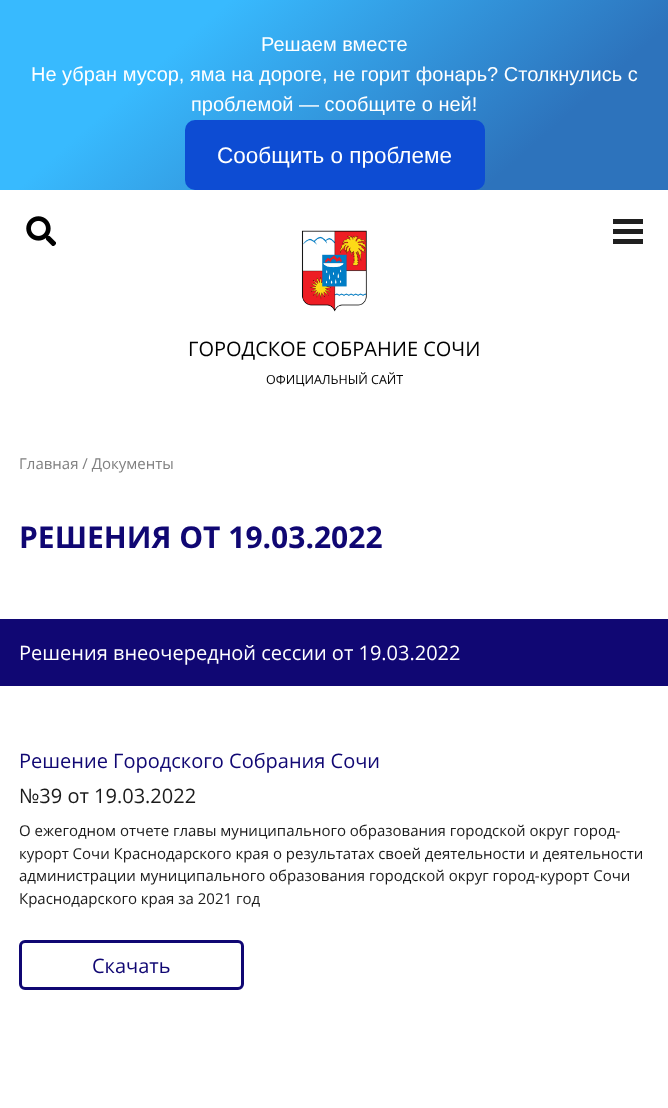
<!DOCTYPE html>
<meta charset="utf-8">
<style>body { margin: 0 } canvas { display: block }</style>
<canvas id="canvas" width="668" height="1108"></canvas>
<img id="img1" src="img_01.png" hidden>
<img id="img2" src="img_02.png" hidden>
<script>
window.onload = function () {
	const canvas = document.getElementById("canvas");
	const ctx = canvas.getContext("2d");
	ctx.miterLimit = 4;
	ctx.fontKerning = "normal";
	function txt(s, x, y) {
		ctx.fillText(s, x, y);
	}
	function fill(x, y, w, h) {
		ctx.fillRect(x, y, w, h);
	}
	function round(x, y, w, h, r) {
		ctx.beginPath();
		ctx.roundRect(x, y, w, h, r);
		ctx.fill();
	}
	function img(id, x, y, w, h) {
		ctx.drawImage(document.getElementById(id), x, y, w, h);
	}
	let gradient;

	ctx.fillStyle = "#FFFFFF";
	fill(0, 0, 668, 1108);
	gradient = ctx.createLinearGradient(140, -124, 529, 314);
	gradient.addColorStop(0.26, "#38BAFE");
	gradient.addColorStop(0.79, "#2D73BC");
	ctx.fillStyle = gradient;
	fill(0, 0, 668, 190);
	ctx.fillStyle = "#0D4CD3";
	round(185, 120, 300, 70, 10);
	img("img1", 26, 216, 30, 30);
	ctx.fillStyle = "#202020";
	fill(613, 219, 30, 5);
	fill(613, 229, 30, 5);
	fill(613, 239, 30, 5);
	img("img2", 301, 230, 66, 82);
	ctx.fillStyle = "#100773";
	fill(0, 619, 668, 67);
	ctx.beginPath();
	ctx.roundRect(20.5, 941.5, 222, 47, 4.5);
	ctx.strokeStyle = "#100773";
	ctx.lineWidth = 3;
	ctx.stroke();
	ctx.font = "20px Liberation Sans";
	ctx.fillStyle = "#FFFFFF";
	txt("Решаем вместе", 261, 51);
	txt("Не убран мусор, яма на дороге, не горит фонарь? Столкнулись с", 31, 81);
	txt("проблемой — сообщите о ней!", 191, 111);
	ctx.font = "22.5px Liberation Sans";
	txt("Сообщить о проблеме", 217, 163);
	ctx.font = "20px Open Sans";
	ctx.fillStyle = "#000000";
	txt("ГОРОДСКОЕ СОБРАНИЕ СОЧИ", 188, 356);
	ctx.font = "12.5px Open Sans";
	txt("ОФИЦИАЛЬНЫЙ САЙТ", 266, 384);
	ctx.font = "15px Open Sans";
	ctx.fillStyle = "#808080";
	txt("Главная / Документы", 19, 469);
	ctx.font = "bold 30px Open Sans";
	ctx.fillStyle = "#100773";
	txt("РЕШЕНИЯ ОТ 19.03.2022", 19, 548);
	ctx.font = "20px Open Sans";
	ctx.fillStyle = "#FFFFFF";
	txt("Решения внеочередной сессии от 19.03.2022", 19, 660);
	ctx.fillStyle = "#100773";
	txt("Решение Городского Собрания Сочи", 19, 768);
	ctx.fillStyle = "#1A1A1A";
	txt("№39 от 19.03.2022", 19, 803);
	ctx.font = "15px Open Sans";
	txt("О ежегодном отчете главы муниципального образования городской округ город-", 19, 836);
	txt("курорт Сочи Краснодарского края о результатах своей деятельности и деятельности", 19, 859);
	txt("администрации муниципального образования городской округ город-курорт Сочи", 19, 881);
	txt("Краснодарского края за 2021 год", 19, 904);
	ctx.font = "20px Open Sans";
	ctx.fillStyle = "#100773";
	txt("Скачать", 92, 973);
};
</script>
